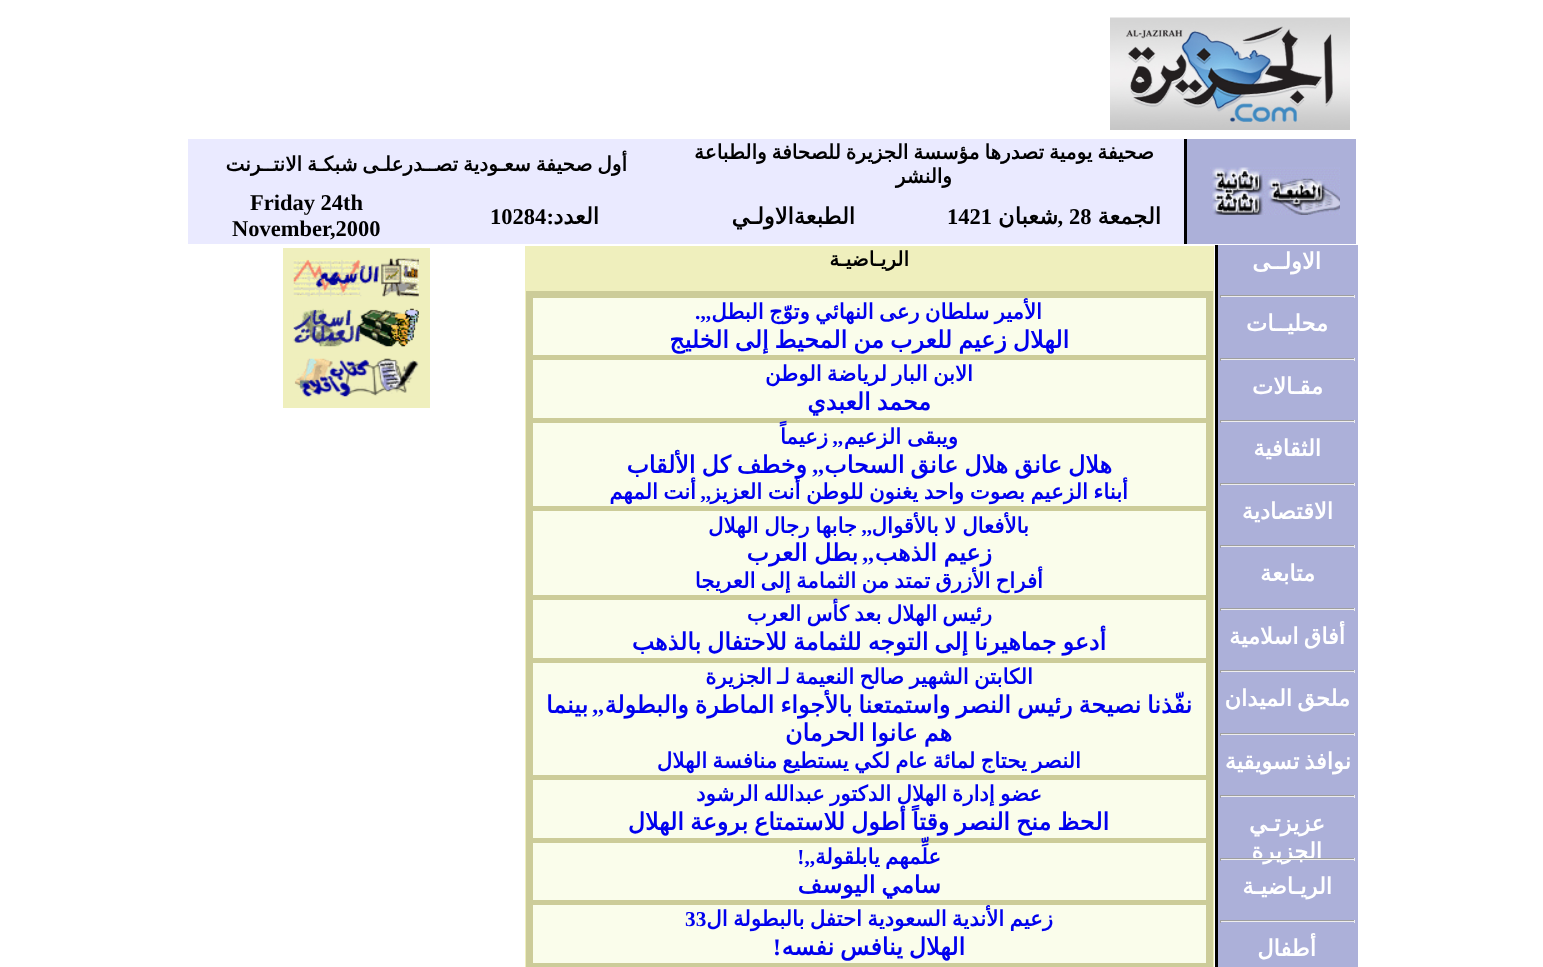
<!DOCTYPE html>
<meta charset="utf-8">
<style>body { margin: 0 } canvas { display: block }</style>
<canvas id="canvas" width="1543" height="967"></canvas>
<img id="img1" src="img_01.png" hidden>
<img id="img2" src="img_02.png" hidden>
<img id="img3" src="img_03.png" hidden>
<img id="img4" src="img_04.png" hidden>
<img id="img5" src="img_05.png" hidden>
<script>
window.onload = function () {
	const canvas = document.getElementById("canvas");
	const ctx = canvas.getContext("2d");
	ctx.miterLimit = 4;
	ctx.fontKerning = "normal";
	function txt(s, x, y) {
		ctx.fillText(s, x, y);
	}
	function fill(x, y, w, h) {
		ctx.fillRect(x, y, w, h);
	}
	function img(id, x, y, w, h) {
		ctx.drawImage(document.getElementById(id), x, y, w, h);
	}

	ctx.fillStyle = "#FFFFFF";
	fill(0, 0, 1543, 967);
	img("img1", 1110, 17, 240, 113);
	ctx.fillStyle = "#ACB0D9";
	fill(1187, 139, 169, 105);
	ctx.fillStyle = "#000000";
	fill(1184, 139, 3, 105);
	img("img2", 1210, 167, 130, 48);
	ctx.fillStyle = "#EAEAFF";
	fill(188, 139, 996, 50);
	fill(188, 189, 996, 55);
	ctx.fillStyle = "#ACB0D9";
	fill(1218, 245, 140, 722);
	ctx.fillStyle = "#000000";
	fill(1215, 245, 3, 722);
	ctx.fillStyle = "#9F9F9F";
	fill(1220, 295, 135, 1);
	ctx.fillStyle = "#EEEEEE";
	fill(1354, 295, 1, 3);
	fill(1220, 296, 135, 1);
	ctx.fillStyle = "#9F9F9F";
	fill(1220, 295, 1, 3);
	fill(1220, 358, 135, 1);
	ctx.fillStyle = "#EEEEEE";
	fill(1354, 358, 1, 3);
	fill(1220, 359, 135, 1);
	ctx.fillStyle = "#9F9F9F";
	fill(1220, 358, 1, 3);
	fill(1220, 420, 135, 1);
	ctx.fillStyle = "#EEEEEE";
	fill(1354, 420, 1, 3);
	fill(1220, 421, 135, 1);
	ctx.fillStyle = "#9F9F9F";
	fill(1220, 420, 1, 3);
	fill(1220, 483, 135, 1);
	ctx.fillStyle = "#EEEEEE";
	fill(1354, 483, 1, 3);
	fill(1220, 484, 135, 1);
	ctx.fillStyle = "#9F9F9F";
	fill(1220, 483, 1, 3);
	fill(1220, 545, 135, 1);
	ctx.fillStyle = "#EEEEEE";
	fill(1354, 545, 1, 3);
	fill(1220, 546, 135, 1);
	ctx.fillStyle = "#9F9F9F";
	fill(1220, 545, 1, 3);
	fill(1220, 608, 135, 1);
	ctx.fillStyle = "#EEEEEE";
	fill(1354, 608, 1, 3);
	fill(1220, 609, 135, 1);
	ctx.fillStyle = "#9F9F9F";
	fill(1220, 608, 1, 3);
	fill(1220, 670, 135, 1);
	ctx.fillStyle = "#EEEEEE";
	fill(1354, 670, 1, 3);
	fill(1220, 671, 135, 1);
	ctx.fillStyle = "#9F9F9F";
	fill(1220, 670, 1, 3);
	fill(1220, 733, 135, 1);
	ctx.fillStyle = "#EEEEEE";
	fill(1354, 733, 1, 3);
	fill(1220, 734, 135, 1);
	ctx.fillStyle = "#9F9F9F";
	fill(1220, 733, 1, 3);
	fill(1220, 795, 135, 1);
	ctx.fillStyle = "#EEEEEE";
	fill(1354, 795, 1, 3);
	fill(1220, 796, 135, 1);
	ctx.fillStyle = "#9F9F9F";
	fill(1220, 795, 1, 3);
	fill(1220, 920, 135, 1);
	ctx.fillStyle = "#EEEEEE";
	fill(1354, 920, 1, 3);
	fill(1220, 921, 135, 1);
	ctx.fillStyle = "#9F9F9F";
	fill(1220, 920, 1, 3);
	ctx.fillStyle = "#EFEFBD";
	fill(525, 246, 689, 721);
	ctx.fillStyle = "#CCCC99";
	fill(526, 291, 687, 676);
	ctx.fillStyle = "#FAFDEB";
	fill(533, 298, 673, 57);
	fill(533, 360, 673, 58);
	fill(533, 423, 673, 83);
	fill(533, 511, 673, 84);
	fill(533, 600, 673, 58);
	fill(533, 663, 673, 112);
	fill(533, 780, 673, 58);
	fill(533, 843, 673, 57);
	fill(533, 905, 673, 58);
	ctx.fillStyle = "#EFEFBD";
	fill(283, 248, 147, 160);
	img("img3", 293, 258, 126, 39);
	img("img4", 293, 308, 126, 39);
	img("img5", 294, 358, 125, 39);
	ctx.wordSpacing = "-1.5px";
	ctx.direction = "rtl";
	ctx.font = "bold 20px DejaVu Sans";
	ctx.fillStyle = "#000000";
	txt("صحيفة يومية تصدرها مؤسسة الجزيرة للصحافة والطباعة", 1154, 159);
	ctx.wordSpacing = "0px";
	txt("والنشر", 952, 183);
	ctx.wordSpacing = "-1.5px";
	txt("أول صحيفة سعـودية تصــدرعلـى شبكـة الانتــرنت", 627, 171);
	ctx.wordSpacing = "0px";
	ctx.font = "bold 22.5px DejaVu Sans";
	txt("الجمعة", 1161, 224);
	ctx.direction = "ltr";
	ctx.font = "bold 22.5px Liberation Serif";
	txt("28", 1069, 224);
	ctx.direction = "rtl";
	txt(",", 1063, 224);
	ctx.font = "bold 22.5px DejaVu Sans";
	txt("شعبان", 1058, 224);
	ctx.direction = "ltr";
	ctx.font = "bold 22.5px Liberation Serif";
	txt("1421", 947, 224);
	ctx.direction = "rtl";
	ctx.font = "bold 22.5px DejaVu Sans";
	txt("الطبعةالاولـي", 855, 224);
	txt("العدد", 599, 224);
	ctx.font = "bold 22.5px Liberation Serif";
	txt(":", 554, 224);
	ctx.direction = "ltr";
	txt("10284", 490, 224);
	txt("Friday 24th", 250, 210);
	txt("November,2000", 232, 236);
	ctx.direction = "rtl";
	ctx.font = "bold 22.5px DejaVu Sans";
	ctx.fillStyle = "#FFFFFF";
	txt("الاولــى", 1321, 269);
	txt("محليــات", 1328, 331);
	txt("مقـالات", 1323, 394);
	txt("الثقافية", 1321, 456);
	txt("الاقتصادية", 1333, 519);
	txt("متابعة", 1315, 581);
	ctx.wordSpacing = "-2px";
	txt("أفاق اسلامية", 1345, 644);
	txt("ملحق الميدان", 1350, 706);
	txt("نوافذ تسويقية", 1351, 769);
	ctx.wordSpacing = "0px";
	txt("عزيزتـي", 1325, 831);
	txt("الجزيرة", 1322, 859);
	ctx.fillStyle = "#9F9F9F";
	fill(1220, 858, 135, 1);
	ctx.fillStyle = "#EEEEEE";
	fill(1354, 858, 1, 3);
	fill(1220, 859, 135, 1);
	ctx.fillStyle = "#9F9F9F";
	fill(1220, 858, 1, 3);
	ctx.fillStyle = "#FFFFFF";
	txt("الريـاضيـة", 1332, 894);
	txt("أطفال", 1316, 956);
	ctx.font = "bold 20px DejaVu Sans";
	ctx.fillStyle = "#000000";
	txt("الريـاضيـة", 909, 266);
	ctx.wordSpacing = "-1.5px";
	ctx.font = "bold 21.25px DejaVu Sans";
	ctx.fillStyle = "#0000EE";
	txt("الأمير سلطان رعى النهائي وتوّج البطل", 1042, 319);
	ctx.wordSpacing = "0px";
	ctx.font = "bold 21.25px Liberation Serif";
	txt(",,.", 711, 319);
	ctx.wordSpacing = "-1.5px";
	ctx.font = "bold 23.75px DejaVu Sans";
	txt("الهلال زعيم للعرب من المحيط إلى الخليج", 1069, 348);
	ctx.font = "bold 21.25px DejaVu Sans";
	txt("الابن البار لرياضة الوطن", 973, 381);
	ctx.font = "bold 23.75px DejaVu Sans";
	txt("محمد العبدي", 931, 410);
	ctx.wordSpacing = "-1px";
	ctx.font = "bold 21.25px DejaVu Sans";
	txt("ويبقى الزعيم", 958, 444);
	ctx.wordSpacing = "0px";
	ctx.font = "bold 21.25px Liberation Serif";
	txt(",,", 843, 444);
	ctx.font = "bold 21.25px DejaVu Sans";
	txt("زعيماً", 828, 444);
	ctx.wordSpacing = "-1.5px";
	ctx.font = "bold 23.75px DejaVu Sans";
	txt("هلال عانق هلال عانق السحاب", 1112, 473);
	ctx.wordSpacing = "0px";
	ctx.font = "bold 23.75px Liberation Serif";
	txt(",,", 824, 473);
	ctx.wordSpacing = "-1.5px";
	ctx.font = "bold 23.75px DejaVu Sans";
	txt("وخطف كل الألقاب", 807, 473);
	ctx.wordSpacing = "0px";
	ctx.font = "bold 21.25px Liberation Serif";
	txt(",,", 711, 499);
	ctx.wordSpacing = "-1.25px";
	ctx.font = "bold 21.25px DejaVu Sans";
	txt("أبناء الزعيم بصوت واحد يغنون للوطن أنت العزيز", 1128, 499);
	txt("أنت المهم", 696, 499);
	ctx.wordSpacing = "-1px";
	txt("بالأفعال لا بالأقوال", 1029, 533);
	ctx.wordSpacing = "0px";
	ctx.font = "bold 21.25px Liberation Serif";
	txt(",,", 872, 533);
	ctx.wordSpacing = "-1px";
	ctx.font = "bold 21.25px DejaVu Sans";
	txt("جابها رجال الهلال", 857, 533);
	ctx.font = "bold 23.75px DejaVu Sans";
	txt("زعيم الذهب", 992, 561);
	ctx.wordSpacing = "0px";
	ctx.font = "bold 23.75px Liberation Serif";
	txt(",,", 874, 561);
	ctx.wordSpacing = "-1px";
	ctx.font = "bold 23.75px DejaVu Sans";
	txt("بطل العرب", 858, 561);
	ctx.wordSpacing = "-1.5px";
	ctx.font = "bold 21.25px DejaVu Sans";
	txt("أفراح الأزرق تمتد من الثمامة إلى العريجا", 1043, 588);
	txt("رئيس الهلال بعد كأس العرب", 992, 621);
	ctx.font = "bold 23.75px DejaVu Sans";
	txt("أدعو جماهيرنا إلى التوجه للثمامة للاحتفال بالذهب", 1106, 650);
	ctx.font = "bold 21.25px DejaVu Sans";
	txt("الكابتن الشهير صالح النعيمة لـ الجزيرة", 1033, 684);
	ctx.font = "bold 23.75px DejaVu Sans";
	txt("نفّذنا نصيحة رئيس النصر واستمتعنا بالأجواء الماطرة والبطولة", 1192, 713);
	ctx.wordSpacing = "0px";
	ctx.font = "bold 23.75px Liberation Serif";
	txt(",,", 604, 713);
	ctx.font = "bold 23.75px DejaVu Sans";
	txt("بينما", 588, 713);
	ctx.wordSpacing = "-1.5px";
	txt("هم عانوا الحرمان", 952, 741);
	ctx.font = "bold 21.25px DejaVu Sans";
	txt("النصر يحتاج لمائة عام لكي يستطيع منافسة الهلال", 1081, 768);
	txt("عضو إدارة الهلال الدكتور عبدالله الرشود", 1042, 801);
	ctx.font = "bold 23.75px DejaVu Sans";
	txt("الحظ منح النصر وقتاً أطول للاستمتاع بروعة الهلال", 1109, 830);
	ctx.font = "bold 21.25px DejaVu Sans";
	txt("علِّمهم يابلقولة", 941, 864);
	ctx.wordSpacing = "0px";
	ctx.font = "bold 21.25px Liberation Serif";
	txt(",,!", 815, 864);
	ctx.wordSpacing = "-1.5px";
	ctx.font = "bold 23.75px DejaVu Sans";
	txt("سامي اليوسف", 941, 893);
	ctx.font = "bold 21.25px DejaVu Sans";
	txt("زعيم الأندية السعودية احتفل بالبطولة ال", 1053, 926);
	ctx.wordSpacing = "0px";
	ctx.direction = "ltr";
	ctx.font = "bold 21.25px Liberation Serif";
	txt("33", 685, 926);
	ctx.wordSpacing = "-1.5px";
	ctx.direction = "rtl";
	ctx.font = "bold 23.75px DejaVu Sans";
	txt("الهلال ينافس نفسه", 965, 955);
	ctx.wordSpacing = "0px";
	ctx.font = "bold 23.75px Liberation Serif";
	txt("!", 781, 955);
};
</script>
